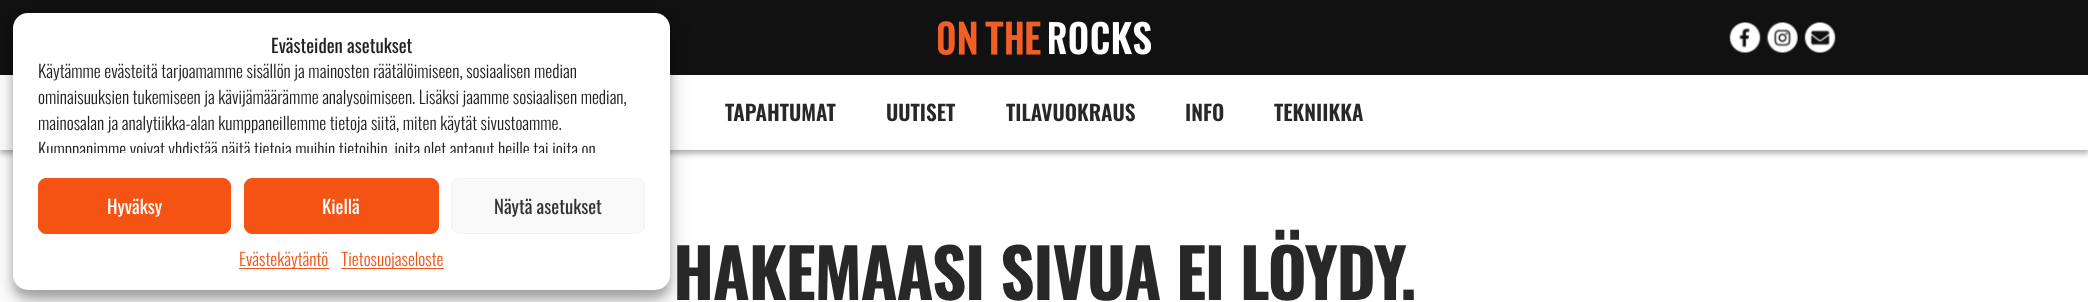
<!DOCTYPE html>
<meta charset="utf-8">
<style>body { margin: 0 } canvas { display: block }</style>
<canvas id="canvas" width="2088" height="302"></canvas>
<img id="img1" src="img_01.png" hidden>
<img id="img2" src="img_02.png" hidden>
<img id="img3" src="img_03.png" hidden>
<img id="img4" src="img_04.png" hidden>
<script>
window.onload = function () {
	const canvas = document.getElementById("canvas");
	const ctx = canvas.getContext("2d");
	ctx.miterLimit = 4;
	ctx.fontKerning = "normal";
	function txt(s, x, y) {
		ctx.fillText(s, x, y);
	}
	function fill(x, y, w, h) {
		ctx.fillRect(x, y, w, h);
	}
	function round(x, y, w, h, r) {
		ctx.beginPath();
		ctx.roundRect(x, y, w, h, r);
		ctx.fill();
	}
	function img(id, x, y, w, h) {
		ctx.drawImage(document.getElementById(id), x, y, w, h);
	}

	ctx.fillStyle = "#FFFFFF";
	fill(0, 0, 2088, 302);
	ctx.fillStyle = "rgba(0, 0, 0, 0.35)";
	ctx.filter = "blur(3px)";
	ctx.beginPath();
	ctx.rect(0, 3, 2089, 150);
	ctx.fill();
	ctx.filter = "none";
	ctx.fillStyle = "#111111";
	fill(0, 0, 2088, 75);
	ctx.fillStyle = "#FFFFFF";
	fill(0, 75, 2088, 75);
	ctx.fillStyle = "rgba(0, 0, 0, 0.23)";
	ctx.filter = "blur(4px)";
	ctx.beginPath();
	ctx.roundRect(13, 20, 657, 278, 15);
	ctx.fill();
	ctx.filter = "none";
	ctx.fillStyle = "rgba(0, 0, 0, 0.19)";
	ctx.filter = "blur(12.5px)";
	ctx.beginPath();
	ctx.roundRect(13, 25, 657, 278, 15);
	ctx.fill();
	ctx.filter = "none";
	ctx.fillStyle = "#FFFFFF";
	round(13, 13, 657, 277, 15);
	ctx.fillStyle = "#F45314";
	ctx.beginPath();
	ctx.roundRect(38.5, 178.5, 192, 55, 7.5);
	ctx.fill();
	ctx.strokeStyle = "#F45314";
	ctx.stroke();
	ctx.beginPath();
	ctx.roundRect(244.5, 178.5, 194, 55, 7.5);
	ctx.fill();
	ctx.stroke();
	ctx.fillStyle = "#F9F9F9";
	ctx.beginPath();
	ctx.roundRect(451.5, 178.5, 193, 55, 7.5);
	ctx.fill();
	ctx.strokeStyle = "#F2F2F2";
	ctx.stroke();
	ctx.fillStyle = "#F45314";
	fill(239, 268, 90, 1);
	fill(341, 268, 103, 1);
	img("img1", 938, 21, 213, 34);
	img("img2", 1729, 22, 32, 31);
	img("img3", 1766, 22, 32, 31);
	img("img4", 1804, 22, 32, 31);
	ctx.font = "18.75px Oswald";
	ctx.fillStyle = "#222222";
	txt("Evästeiden asetukset", 271, 53);
	ctx.font = "300 17.5px Oswald";
	txt("Käytämme evästeitä tarjoamamme sisällön ja mainosten räätälöimiseen, sosiaalisen median", 38, 78);
	txt("ominaisuuksien tukemiseen ja kävijämäärämme analysoimiseen. Lisäksi jaamme sosiaalisen median,", 38, 104);
	txt("mainosalan ja analytiikka-alan kumppaneillemme tietoja siitä, miten käytät sivustoamme.", 38, 130);
	ctx.save();
	ctx.beginPath();
	ctx.rect(38, 56, 607, 97);
	ctx.clip();
	txt("Kumppanimme voivat yhdistää näitä tietoja muihin tietoihin, joita olet antanut heille tai joita on", 38, 156);
	ctx.restore();
	ctx.font = "18.75px Oswald";
	ctx.fillStyle = "#FFFFFF";
	txt("Hyväksy", 107, 214);
	txt("Kiellä", 322, 214);
	ctx.fillStyle = "#333333";
	txt("Näytä asetukset", 494, 214);
	ctx.font = "300 17.5px Oswald";
	ctx.fillStyle = "#F45314";
	txt("Evästekäytäntö", 239, 266);
	txt("Tietosuojaseloste", 341, 266);
	ctx.font = "600 21.25px Oswald";
	ctx.fillStyle = "#282828";
	txt("TAPAHTUMAT", 725, 121);
	txt("UUTISET", 886, 121);
	txt("TILAVUOKRAUS", 1006, 121);
	txt("INFO", 1185, 121);
	txt("TEKNIIKKA", 1274, 121);
	ctx.letterSpacing = "-1.35px";
	ctx.font = "bold 67.5px Oswald";
	txt("HAKEMAASI SIVUA EI LÖYDY.", 673, 300);
};
</script>
